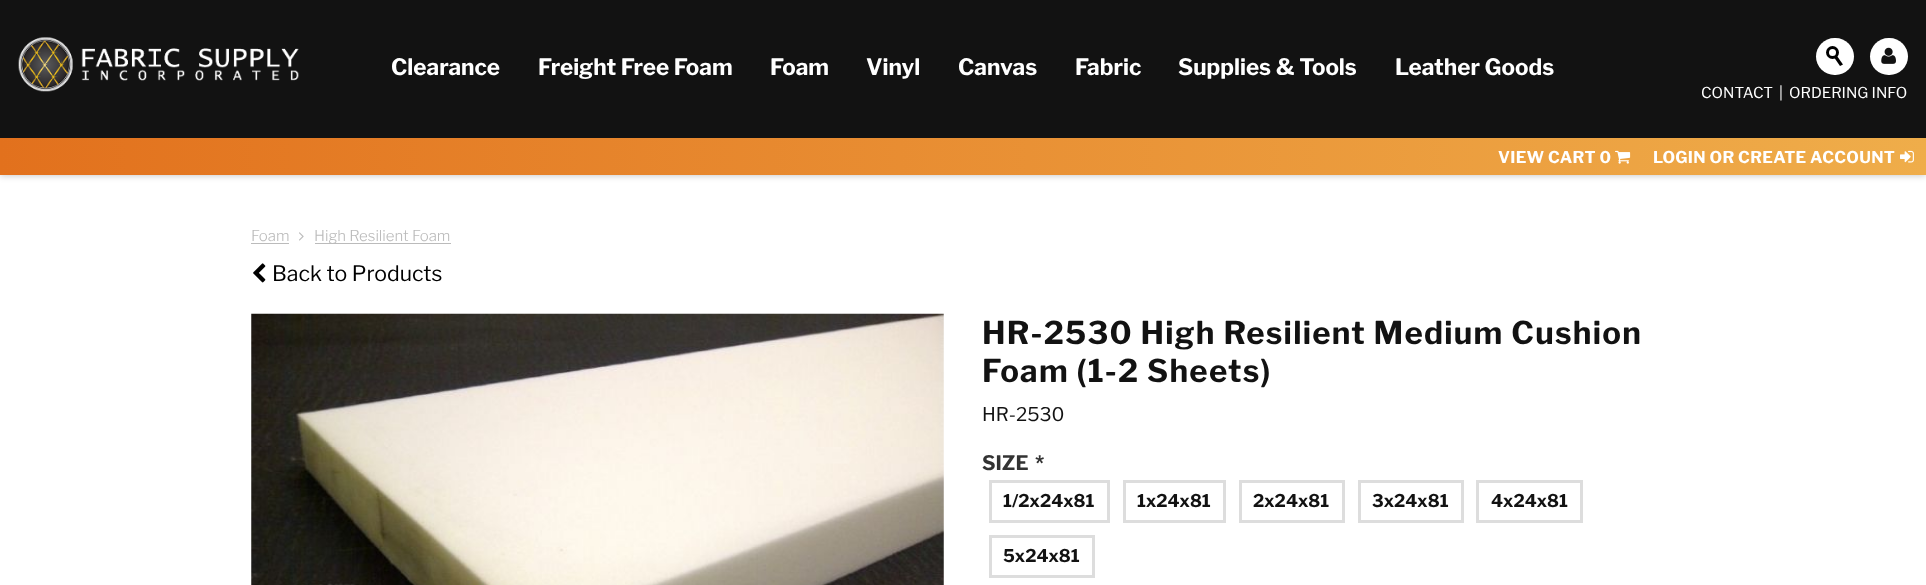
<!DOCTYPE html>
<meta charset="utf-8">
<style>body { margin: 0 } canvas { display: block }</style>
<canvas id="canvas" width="1926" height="585"></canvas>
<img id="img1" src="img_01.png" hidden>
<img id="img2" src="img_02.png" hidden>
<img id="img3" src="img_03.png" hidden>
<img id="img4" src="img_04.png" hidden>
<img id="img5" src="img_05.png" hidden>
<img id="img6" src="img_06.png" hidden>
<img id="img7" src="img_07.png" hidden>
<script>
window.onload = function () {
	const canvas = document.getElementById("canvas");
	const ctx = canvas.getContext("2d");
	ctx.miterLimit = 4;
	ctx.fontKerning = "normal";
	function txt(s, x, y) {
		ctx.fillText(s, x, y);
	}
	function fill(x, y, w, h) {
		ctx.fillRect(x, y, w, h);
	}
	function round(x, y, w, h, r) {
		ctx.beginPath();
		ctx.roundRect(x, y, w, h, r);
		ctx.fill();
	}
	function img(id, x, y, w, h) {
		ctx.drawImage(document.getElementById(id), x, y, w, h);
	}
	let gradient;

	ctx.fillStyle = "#FFFFFF";
	fill(0, 0, 1926, 585);
	ctx.fillStyle = "rgba(0, 0, 0, 0.2)";
	ctx.filter = "blur(3px)";
	ctx.beginPath();
	ctx.rect(0, 1, 1926, 175);
	ctx.fill();
	ctx.filter = "none";
	ctx.fillStyle = "#121212";
	fill(0, 0, 1926, 138);
	img("img1", 18, 37, 281, 55);
	ctx.fillStyle = "#FFFFFF";
	round(1816, 38, 38, 37, 18.5);
	ctx.fillStyle = "#000000";
	ctx.beginPath();
	ctx.arc(1832.5, 52.5, 6.5, 0, Math.PI * 2);
	ctx.fill();
	ctx.fillStyle = "#FFFFFF";
	ctx.beginPath();
	ctx.arc(1832.5, 52.5, 3.5, 0, Math.PI * 2);
	ctx.fill();
	ctx.fillStyle = "#000000";
	ctx.beginPath();
	ctx.moveTo(1840, 66);
	ctx.lineTo(1834.5, 58);
	ctx.lineTo(1837, 56);
	ctx.lineTo(1843, 64.5);
	ctx.closePath();
	ctx.fill();
	ctx.fillStyle = "#FFFFFF";
	round(1870, 38, 38, 37, 18.5);
	img("img2", 1881, 47, 15, 17);
	gradient = ctx.createLinearGradient(0, 156, 1926, 156);
	gradient.addColorStop(0, "#E2711D");
	gradient.addColorStop(1, "#EFAD4A");
	ctx.fillStyle = gradient;
	fill(0, 138, 1926, 37);
	img("img3", 1615, 150, 16, 14);
	img("img4", 1900, 150, 14, 13);
	ctx.fillStyle = "#BBBBBB";
	fill(251, 243, 38, 1);
	img("img5", 299, 232, 5, 9);
	fill(315, 243, 136, 1);
	img("img6", 253, 263, 13, 20);
	img("img7", 251, 313, 693, 272);
	ctx.strokeStyle = "#DDDDDD";
	ctx.lineWidth = 3;
	ctx.strokeRect(990.5, 481.5, 118, 40);
	ctx.strokeRect(1124.5, 481.5, 100, 40);
	ctx.strokeRect(1240.5, 481.5, 103, 40);
	ctx.strokeRect(1359.5, 481.5, 103, 40);
	ctx.strokeRect(1477.5, 481.5, 104, 40);
	ctx.strokeRect(990.5, 536.5, 103, 40);
	ctx.font = "bold 22.5px Libre Franklin";
	ctx.fillStyle = "#FFFFFF";
	txt("Clearance", 391, 75);
	txt("Freight Free Foam", 538, 75);
	txt("Foam", 770, 75);
	txt("Vinyl", 866, 75);
	txt("Canvas", 958, 75);
	txt("Fabric", 1075, 75);
	txt("Supplies & Tools", 1178, 75);
	txt("Leather Goods", 1395, 75);
	ctx.font = "15px Libre Franklin";
	txt("CONTACT", 1701, 98);
	txt("|", 1779, 98);
	txt("ORDERING INFO", 1789, 98);
	ctx.letterSpacing = "0.3px";
	ctx.font = "bold 16.25px Libre Franklin";
	txt("VIEW CART 0", 1498, 163);
	txt("LOGIN OR CREATE ACCOUNT", 1653, 163);
	ctx.letterSpacing = "0px";
	ctx.font = "300 15px Libre Franklin";
	ctx.fillStyle = "#BBBBBB";
	txt("Foam", 251, 241);
	txt("High Resilient Foam", 314, 241);
	ctx.font = "21.25px Libre Franklin";
	ctx.fillStyle = "#000000";
	txt("Back to Products", 272, 281);
	ctx.letterSpacing = "1.25px";
	ctx.font = "bold 31.25px Libre Franklin";
	ctx.fillStyle = "#121212";
	txt("HR-2530 High Resilient Medium Cushion", 982, 344);
	txt("Foam (1-2 Sheets)", 982, 382);
	ctx.letterSpacing = "0px";
	ctx.font = "18.75px Libre Franklin";
	txt("HR-2530", 982, 421);
	ctx.font = "bold 20px Libre Franklin";
	ctx.fillStyle = "#333333";
	txt("SIZE", 982, 470);
	txt("*", 1035, 470);
	ctx.font = "bold 17.5px Libre Franklin";
	ctx.fillStyle = "#121212";
	txt("1/2x24x81", 1003, 507);
	txt("1x24x81", 1137, 507);
	txt("2x24x81", 1253, 507);
	txt("3x24x81", 1372, 507);
	txt("4x24x81", 1491, 507);
	txt("5x24x81", 1003, 562);
};
</script>
